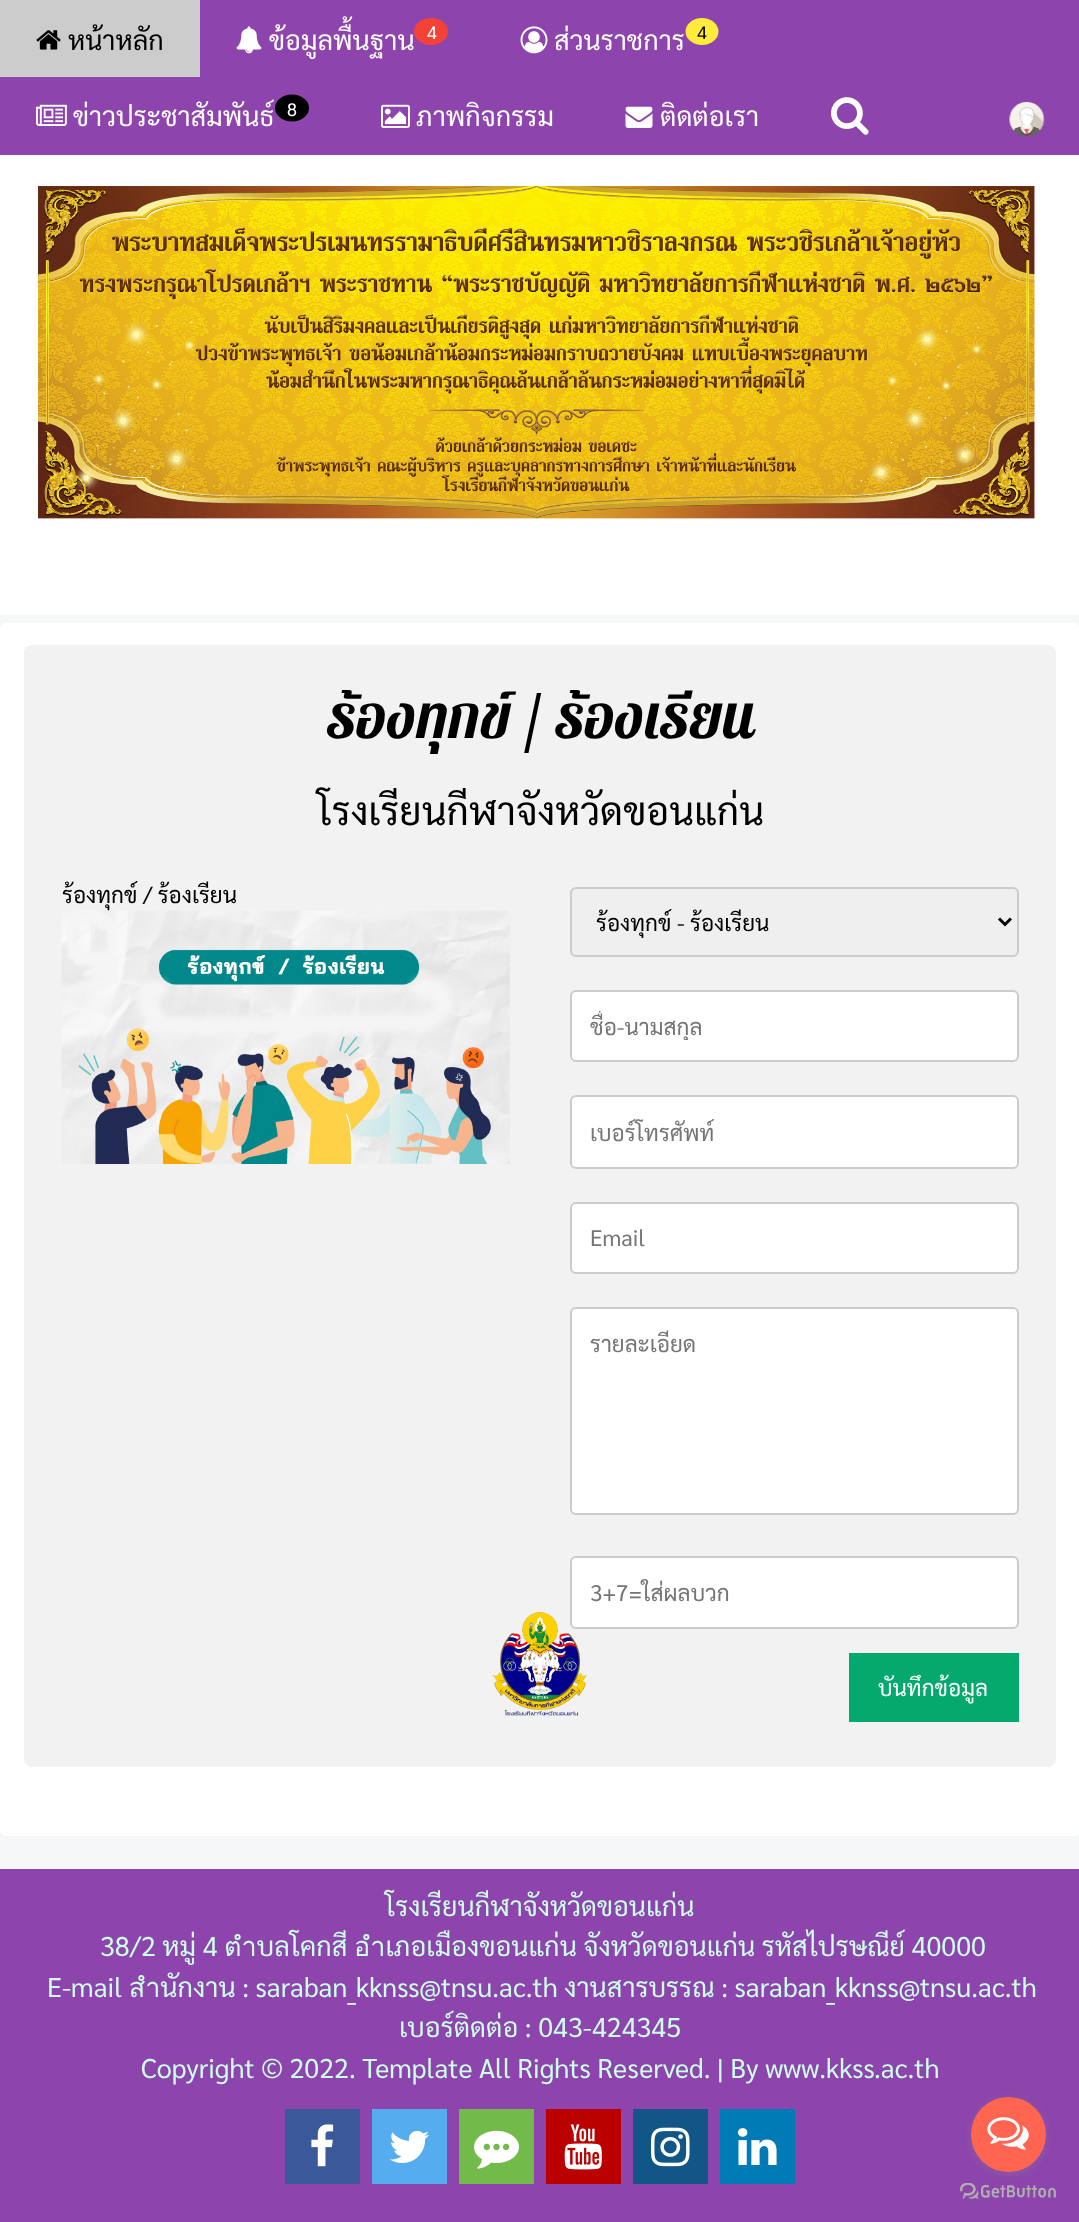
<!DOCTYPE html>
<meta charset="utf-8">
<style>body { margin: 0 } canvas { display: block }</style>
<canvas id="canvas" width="1079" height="2222"></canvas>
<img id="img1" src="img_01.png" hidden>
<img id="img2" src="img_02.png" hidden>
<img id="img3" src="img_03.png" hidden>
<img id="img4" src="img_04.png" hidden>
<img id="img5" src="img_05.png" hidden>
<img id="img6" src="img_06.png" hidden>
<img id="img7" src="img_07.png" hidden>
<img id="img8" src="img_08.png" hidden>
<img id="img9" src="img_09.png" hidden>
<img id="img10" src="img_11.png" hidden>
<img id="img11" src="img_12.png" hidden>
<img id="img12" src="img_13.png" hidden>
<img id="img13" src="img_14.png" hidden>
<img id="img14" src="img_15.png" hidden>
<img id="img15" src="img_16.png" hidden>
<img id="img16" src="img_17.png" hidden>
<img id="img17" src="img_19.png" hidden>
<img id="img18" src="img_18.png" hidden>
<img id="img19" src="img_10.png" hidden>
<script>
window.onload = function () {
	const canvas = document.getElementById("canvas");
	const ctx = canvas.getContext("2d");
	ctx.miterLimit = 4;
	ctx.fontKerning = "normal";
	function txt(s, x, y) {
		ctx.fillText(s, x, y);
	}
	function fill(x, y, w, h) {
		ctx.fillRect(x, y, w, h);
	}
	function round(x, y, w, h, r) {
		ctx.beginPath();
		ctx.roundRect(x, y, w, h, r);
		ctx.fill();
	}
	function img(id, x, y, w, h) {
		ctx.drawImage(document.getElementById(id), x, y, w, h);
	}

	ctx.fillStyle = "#F5F7F8";
	fill(0, 0, 1079, 2222);
	ctx.fillStyle = "#8D44AD";
	fill(0, 0, 1079, 155);
	ctx.fillStyle = "#CCCCCC";
	fill(0, 0, 200, 77);
	img("img1", 36, 30, 25, 20);
	img("img2", 236, 26, 26, 28);
	ctx.fillStyle = "#F44336";
	ctx.beginPath();
	ctx.ellipse(431, 31.5, 17, 13.5, 0, 0, Math.PI * 2);
	ctx.fill();
	img("img3", 520, 26, 28, 28);
	ctx.fillStyle = "#FFEB3B";
	ctx.beginPath();
	ctx.ellipse(702, 31.5, 16.5, 13.5, 0, 0, Math.PI * 2);
	ctx.fill();
	img("img4", 36, 104, 31, 22);
	ctx.fillStyle = "#000000";
	ctx.beginPath();
	ctx.ellipse(292, 108, 17, 13.5, 0, 0, Math.PI * 2);
	ctx.fill();
	img("img5", 381, 104, 29, 24);
	img("img6", 625, 106, 28, 22);
	img("img7", 831, 97, 38, 38);
	img("img8", 1009, 102, 36, 35);
	img("img9", 0, 155, 1079, 460);
	ctx.fillStyle = "#FFFFFF";
	round(0, 623, 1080, 1213, 6);
	ctx.fillStyle = "#F2F2F2";
	round(24, 645, 1032, 1122, 8);
	ctx.fillStyle = "#EFEFEF";
	ctx.beginPath();
	ctx.roundRect(571, 888, 447, 68, 5);
	ctx.fill();
	ctx.strokeStyle = "#CCCCCC";
	ctx.lineWidth = 2;
	ctx.stroke();
	ctx.beginPath();
	ctx.moveTo(999, 918.5);
	ctx.lineTo(1005, 924.5);
	ctx.lineTo(1011, 918.5);
	ctx.strokeStyle = "#000000";
	ctx.lineWidth = 3;
	ctx.stroke();
	ctx.fillStyle = "#FFFFFF";
	ctx.beginPath();
	ctx.roundRect(571, 991, 447, 70, 5);
	ctx.fill();
	ctx.strokeStyle = "#CCCCCC";
	ctx.lineWidth = 2;
	ctx.stroke();
	ctx.beginPath();
	ctx.roundRect(571, 1096, 447, 72, 5);
	ctx.fill();
	ctx.stroke();
	ctx.beginPath();
	ctx.roundRect(571, 1203, 447, 70, 5);
	ctx.fill();
	ctx.stroke();
	ctx.beginPath();
	ctx.roundRect(571, 1308, 447, 206, 5);
	ctx.fill();
	ctx.stroke();
	ctx.beginPath();
	ctx.roundRect(571, 1557, 447, 71, 5);
	ctx.fill();
	ctx.stroke();
	ctx.fillStyle = "#04AA6D";
	fill(849, 1653, 170, 69);
	img("img10", 492, 1612, 95, 104);
	ctx.fillStyle = "#8D44AD";
	fill(0, 1869, 1079, 353);
	ctx.fillStyle = "#3B5998";
	fill(285, 2109, 75, 75);
	img("img11", 311, 2124, 23, 43);
	ctx.fillStyle = "#55ACEE";
	fill(372, 2109, 75, 75);
	img("img12", 389, 2130, 40, 33);
	ctx.fillStyle = "#72BA49";
	fill(459, 2109, 75, 75);
	img("img13", 474, 2130, 45, 39);
	ctx.fillStyle = "#BB0000";
	fill(546, 2109, 75, 75);
	img("img14", 564, 2124, 38, 46);
	ctx.fillStyle = "#125688";
	fill(633, 2109, 75, 75);
	img("img15", 651, 2127, 39, 40);
	ctx.fillStyle = "#007BB5";
	fill(720, 2109, 75, 75);
	img("img16", 738, 2128, 39, 37);
	img("img17", 960, 2183, 96, 16);
	ctx.fillStyle = "rgba(136, 136, 136, 0.4)";
	ctx.filter = "blur(5px)";
	ctx.beginPath();
	ctx.roundRect(971, 2099, 75, 75, 37.5);
	ctx.fill();
	ctx.filter = "none";
	ctx.fillStyle = "#FF6550";
	ctx.beginPath();
	ctx.arc(1008.5, 2134.5, 37.5, 0, Math.PI * 2);
	ctx.fill();
	img("img18", 987, 2117, 42, 33);
	ctx.font = "27px Sarabun";
	ctx.fillStyle = "#000000";
	txt("หน้าหลัก", 68, 50);
	ctx.fillStyle = "#FFFFFF";
	txt("ข้อมูลพื้นฐาน", 269, 50);
	ctx.font = "18px Sarabun";
	txt("4", 427, 39);
	ctx.font = "27px Sarabun";
	txt("ส่วนราชการ", 554, 50);
	ctx.font = "18px Sarabun";
	ctx.fillStyle = "#000000";
	txt("4", 697, 39);
	ctx.font = "27px Sarabun";
	ctx.fillStyle = "#FFFFFF";
	txt("ข่าวประชาสัมพันธ์", 73, 126);
	ctx.font = "18px Sarabun";
	txt("8", 287, 116);
	ctx.font = "27px Sarabun";
	txt("ภาพกิจกรรม", 416, 126);
	txt("ติดต่อเรา", 660, 126);
	ctx.font = "60px Pattaya";
	ctx.fillStyle = "#000000";
	txt("ร้องทุกข์ / ร้องเรียน", 327, 738);
	ctx.font = "39px Sarabun";
	txt("โรงเรียนกีฬาจังหวัดขอนแก่น", 317, 825);
	ctx.font = "22.5px Sarabun";
	txt("ร้องทุกข์ / ร้องเรียน", 62, 903);
	img("img19", 61, 910, 449, 254);
	ctx.save();
	ctx.beginPath();
	ctx.rect(596, 906, 379, 32);
	ctx.clip();
	txt("ร้องทุกข์ - ร้องเรียน", 596, 931);
	ctx.restore();
	ctx.save();
	ctx.beginPath();
	ctx.rect(590, 1011, 409, 29);
	ctx.clip();
	ctx.fillStyle = "#757575";
	txt("ชื่อ-นามสกุล", 590, 1035);
	ctx.restore();
	ctx.fillStyle = "#757575";
	txt("เบอร์โทรศัพท์", 590, 1141);
	txt("Email", 590, 1246);
	txt("รายละเอียด", 590, 1352);
	txt("3+7=ใส่ผลบวก", 590, 1601);
	ctx.fillStyle = "#FFFFFF";
	txt("บันทึกข้อมูล", 878, 1696);
	ctx.font = "27px Sarabun";
	ctx.fillStyle = "#CCFFEA";
	txt("โรงเรียนกีฬาจังหวัดขอนแก่น", 385, 1916);
	txt("38/2 หมู่ 4 ตำบลโคกสี อำเภอเมืองขอนแก่น จังหวัดขอนแก่น รหัสไปรษณีย์ 40000", 100, 1956);
	txt("E-mail สำนักงาน : saraban_kknss@tnsu.ac.th งานสารบรรณ : saraban_kknss@tnsu.ac.th", 47, 1997);
	txt("เบอร์ติดต่อ : 043-424345", 399, 2037);
	txt("Copyright © 2022. Template All Rights Reserved. | By www.kkss.ac.th", 141, 2078);
};
</script>
